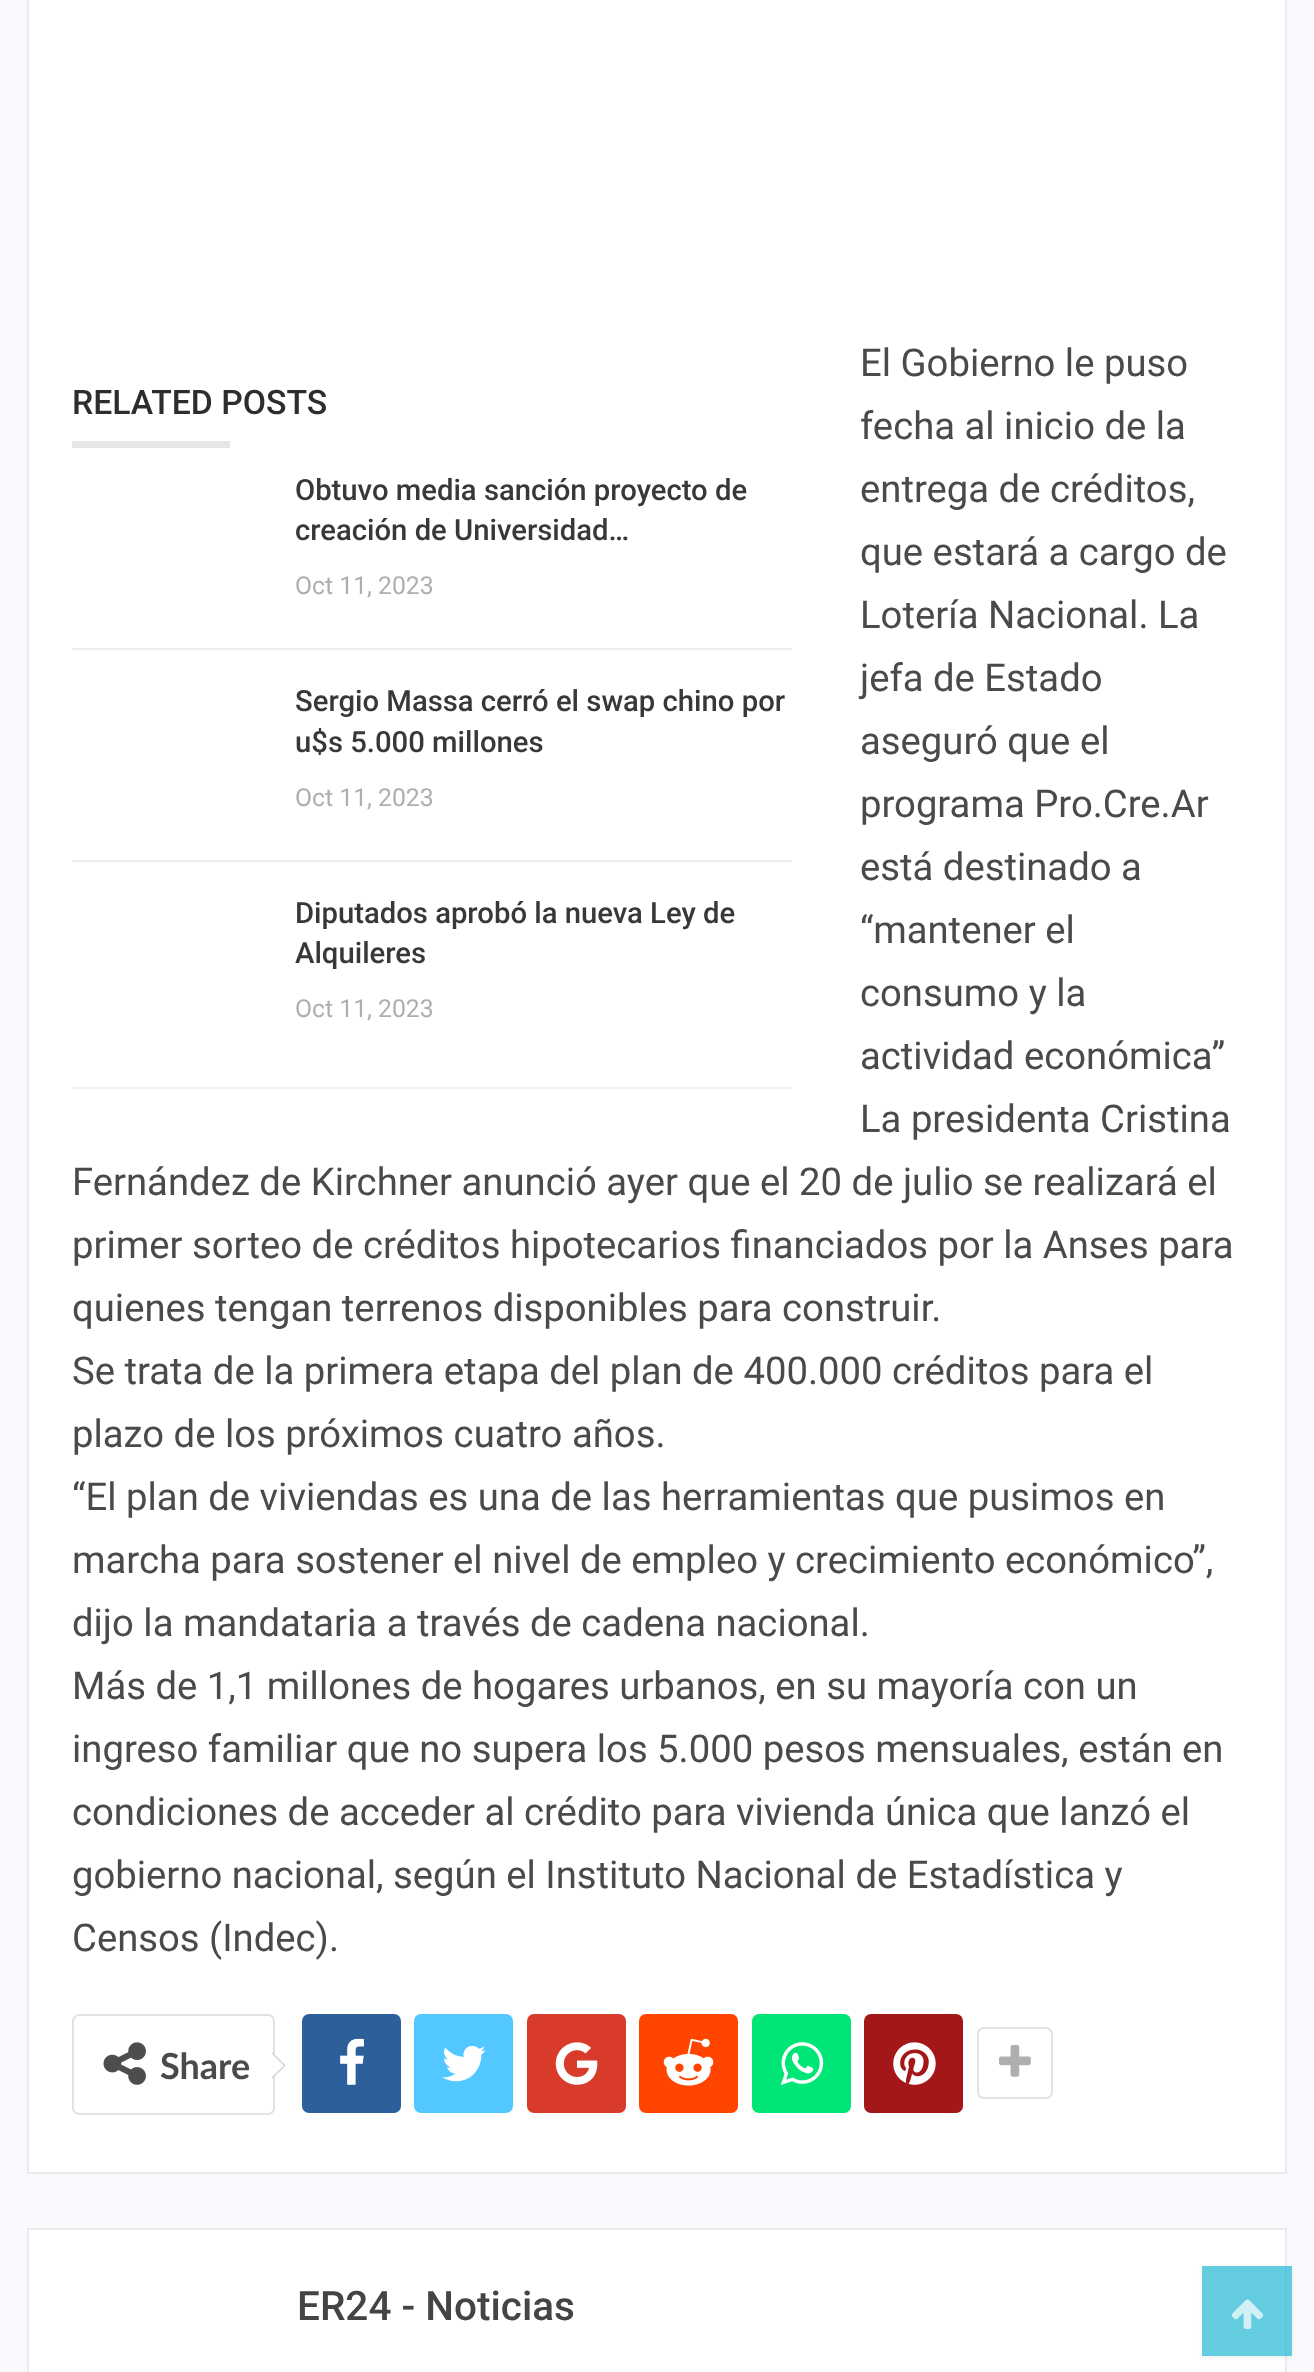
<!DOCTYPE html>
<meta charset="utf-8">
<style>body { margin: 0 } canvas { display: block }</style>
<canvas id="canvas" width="1314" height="2372"></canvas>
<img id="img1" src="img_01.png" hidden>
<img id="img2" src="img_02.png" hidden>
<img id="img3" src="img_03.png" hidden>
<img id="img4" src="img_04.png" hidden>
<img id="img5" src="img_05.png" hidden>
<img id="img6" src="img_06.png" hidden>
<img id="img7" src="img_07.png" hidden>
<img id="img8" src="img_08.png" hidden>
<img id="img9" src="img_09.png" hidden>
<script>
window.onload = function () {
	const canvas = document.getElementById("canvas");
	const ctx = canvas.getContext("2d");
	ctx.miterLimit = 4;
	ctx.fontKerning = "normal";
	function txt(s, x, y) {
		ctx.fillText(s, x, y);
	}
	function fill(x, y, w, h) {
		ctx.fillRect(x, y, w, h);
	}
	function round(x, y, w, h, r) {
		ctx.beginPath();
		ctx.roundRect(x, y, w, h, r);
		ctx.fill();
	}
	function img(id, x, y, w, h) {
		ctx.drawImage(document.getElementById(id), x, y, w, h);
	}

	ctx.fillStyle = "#F9FAFD";
	fill(0, 0, 1314, 2372);
	ctx.fillStyle = "#FFFFFF";
	ctx.beginPath();
	ctx.rect(28, -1, 1258, 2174);
	ctx.fill();
	ctx.strokeStyle = "#EBEBEB";
	ctx.lineWidth = 2;
	ctx.stroke();
	ctx.fillStyle = "#F0F0F0";
	fill(72, 1087, 720, 2);
	ctx.fillStyle = "#E6E6E6";
	fill(72, 441, 158, 7);
	ctx.fillStyle = "#EDEDED";
	fill(72, 648, 720, 2);
	fill(72, 860, 720, 2);
	ctx.beginPath();
	ctx.roundRect(73, 2015, 201, 99, 6);
	ctx.strokeStyle = "#E2E2E2";
	ctx.stroke();
	img("img1", 103, 2042, 43, 43);
	ctx.fillStyle = "#D7D7D7";
	ctx.beginPath();
	ctx.moveTo(272, 2079);
	ctx.lineTo(272, 2052);
	ctx.lineTo(286, 2065.5);
	ctx.closePath();
	ctx.fill();
	ctx.fillStyle = "#FFFFFF";
	ctx.beginPath();
	ctx.moveTo(272, 2077);
	ctx.lineTo(272, 2054);
	ctx.lineTo(283.5, 2065.5);
	ctx.closePath();
	ctx.fill();
	ctx.fillStyle = "#2D5F9A";
	round(302, 2014, 99, 99, 7);
	img("img2", 340, 2038, 24, 47);
	ctx.fillStyle = "#53C7FF";
	round(414, 2014, 99, 99, 7);
	img("img3", 442, 2045, 44, 37);
	ctx.fillStyle = "#D93B2B";
	round(527, 2014, 99, 99, 7);
	img("img4", 555, 2042, 43, 43);
	ctx.fillStyle = "#FF4500";
	round(639, 2014, 99, 99, 7);
	img("img5", 663, 2038, 51, 48);
	ctx.fillStyle = "#00E676";
	round(752, 2014, 99, 99, 7);
	img("img6", 780, 2042, 44, 43);
	ctx.fillStyle = "#A41719";
	round(864, 2014, 99, 99, 7);
	img("img7", 893, 2042, 43, 43);
	ctx.beginPath();
	ctx.roundRect(978, 2028, 74, 70, 6);
	ctx.stroke();
	img("img8", 999, 2044, 32, 33);
	ctx.fillStyle = "#FFFFFF";
	ctx.beginPath();
	ctx.rect(28, 2229, 1258, 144);
	ctx.fill();
	ctx.strokeStyle = "#EBEBEB";
	ctx.stroke();
	ctx.save();
	ctx.beginPath();
	ctx.moveTo(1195, 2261);
	ctx.lineTo(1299, 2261);
	ctx.lineTo(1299, 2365);
	ctx.lineTo(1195, 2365);
	ctx.closePath();
	ctx.moveTo(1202, 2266);
	ctx.lineTo(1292, 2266);
	ctx.lineTo(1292, 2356);
	ctx.lineTo(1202, 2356);
	ctx.closePath();
	ctx.clip("evenodd");
	ctx.fillStyle = "rgba(0, 0, 0, 0.06)";
	ctx.filter = "blur(2px)";
	ctx.beginPath();
	ctx.rect(1202, 2268, 90, 90);
	ctx.fill();
	ctx.filter = "none";
	ctx.restore();
	ctx.fillStyle = "rgba(33, 182, 209, 0.7)";
	fill(1202, 2266, 90, 90);
	img("img9", 1231, 2299, 33, 31);
	ctx.font = "38.25px Roboto";
	ctx.fillStyle = "#4A4A4A";
	txt("El Gobierno le puso", 860, 376);
	txt("fecha al inicio de la", 860, 439);
	txt("entrega de créditos,", 860, 502);
	txt("que estará a cargo de", 860, 565);
	txt("Lotería Nacional. La", 860, 628);
	txt("jefa de Estado", 860, 691);
	txt("aseguró que el", 860, 754);
	txt("programa Pro.Cre.Ar", 860, 817);
	txt("está destinado a", 860, 880);
	txt("“mantener el", 860, 943);
	txt("consumo y la", 860, 1006);
	txt("actividad económica”", 860, 1069);
	txt("La presidenta Cristina", 860, 1132);
	txt("Fernández de Kirchner anunció ayer que el 20 de julio se realizará el", 72, 1195);
	txt("primer sorteo de créditos hipotecarios financiados por la Anses para", 72, 1258);
	txt("quienes tengan terrenos disponibles para construir.", 72, 1321);
	txt("Se trata de la primera etapa del plan de 400.000 créditos para el", 72, 1384);
	txt("plazo de los próximos cuatro años.", 72, 1447);
	txt("“El plan de viviendas es una de las herramientas que pusimos en", 72, 1510);
	txt("marcha para sostener el nivel de empleo y crecimiento económico”,", 72, 1573);
	txt("dijo la mandataria a través de cadena nacional.", 72, 1636);
	txt("Más de 1,1 millones de hogares urbanos, en su mayoría con un", 72, 1699);
	txt("ingreso familiar que no supera los 5.000 pesos mensuales, están en", 72, 1762);
	txt("condiciones de acceder al crédito para vivienda única que lanzó el", 72, 1825);
	txt("gobierno nacional, según el Instituto Nacional de Estadística y", 72, 1888);
	txt("Censos (Indec).", 72, 1951);
	ctx.font = "500 33.75px Roboto";
	ctx.fillStyle = "#2D2D2D";
	txt("RELATED POSTS", 72, 414);
	ctx.font = "500 29.25px Roboto";
	ctx.fillStyle = "#383838";
	txt("Obtuvo media sanción proyecto de", 295, 500);
	txt("creación de Universidad…", 295, 540);
	ctx.font = "24.75px Roboto";
	ctx.fillStyle = "#AEAEAE";
	txt("Oct 11, 2023", 295, 594);
	ctx.font = "500 29.25px Roboto";
	ctx.fillStyle = "#383838";
	txt("Sergio Massa cerró el swap chino por", 295, 711);
	txt("u$s 5.000 millones", 295, 752);
	ctx.font = "24.75px Roboto";
	ctx.fillStyle = "#AEAEAE";
	txt("Oct 11, 2023", 295, 806);
	ctx.font = "500 29.25px Roboto";
	ctx.fillStyle = "#383838";
	txt("Diputados aprobó la nueva Ley de", 295, 923);
	txt("Alquileres", 295, 963);
	ctx.font = "24.75px Roboto";
	ctx.fillStyle = "#AEAEAE";
	txt("Oct 11, 2023", 295, 1017);
	ctx.font = "bold 36px Lato";
	ctx.fillStyle = "#4A4A4A";
	txt("Share", 160, 2079);
	ctx.font = "500 40.5px Roboto";
	ctx.fillStyle = "#444444";
	txt("ER24 - Noticias", 297, 2320);
};
</script>
